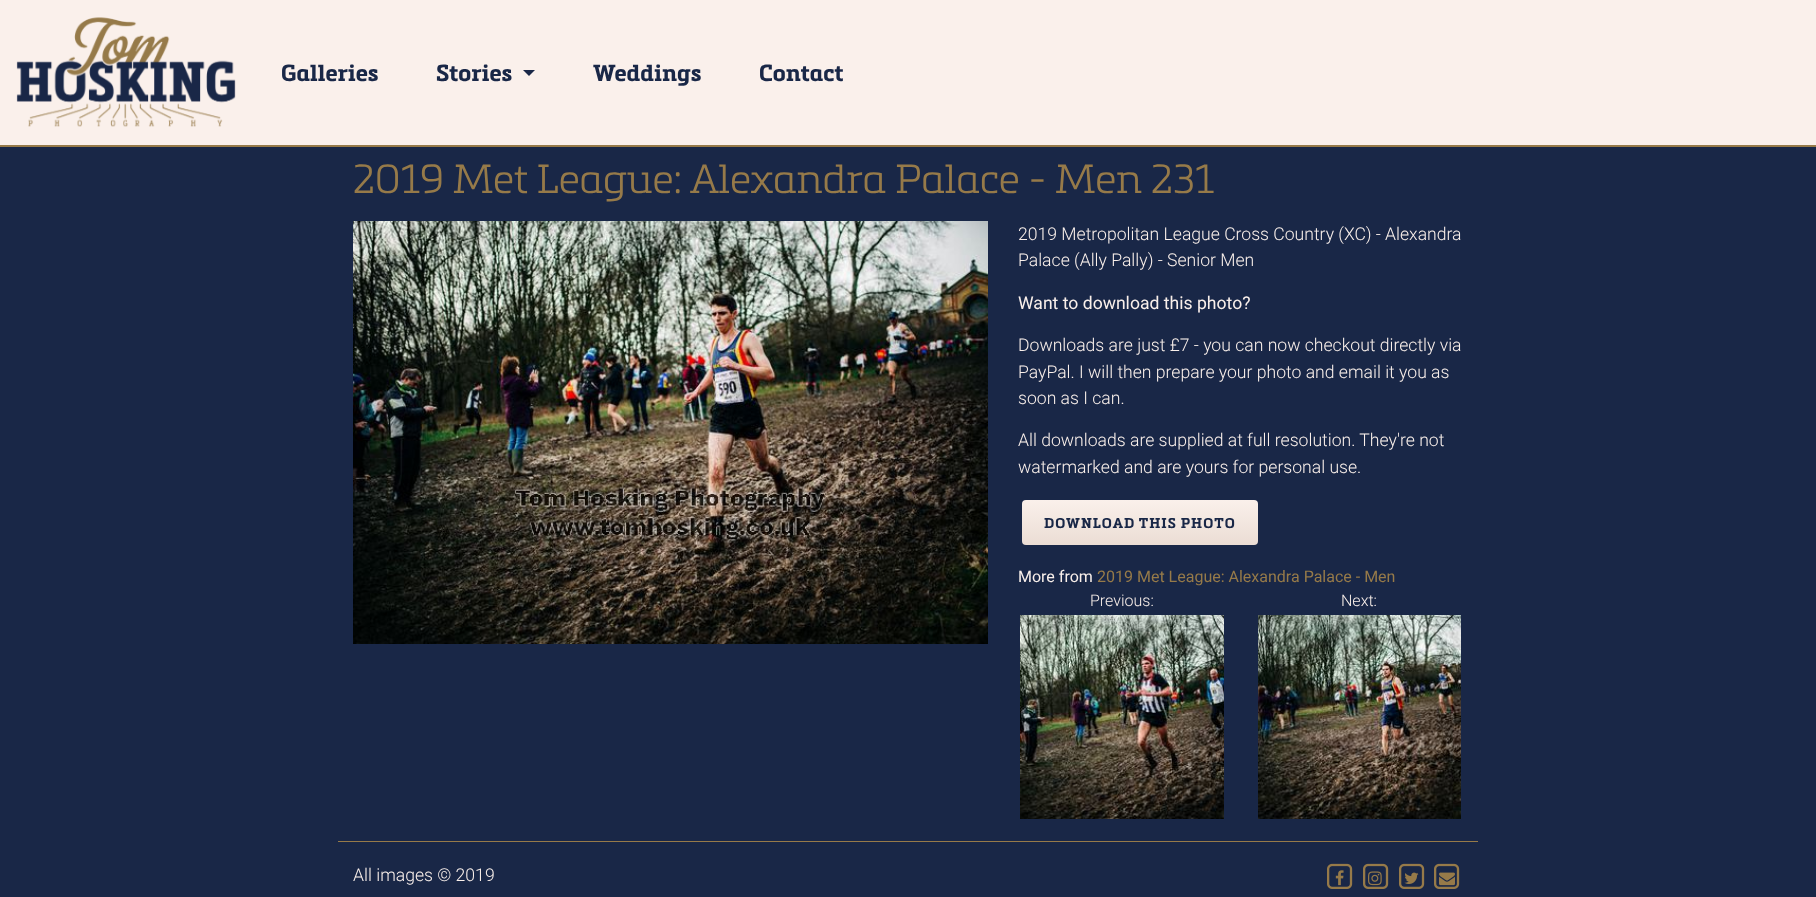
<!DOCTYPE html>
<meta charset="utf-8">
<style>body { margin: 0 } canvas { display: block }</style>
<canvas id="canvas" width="1816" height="897"></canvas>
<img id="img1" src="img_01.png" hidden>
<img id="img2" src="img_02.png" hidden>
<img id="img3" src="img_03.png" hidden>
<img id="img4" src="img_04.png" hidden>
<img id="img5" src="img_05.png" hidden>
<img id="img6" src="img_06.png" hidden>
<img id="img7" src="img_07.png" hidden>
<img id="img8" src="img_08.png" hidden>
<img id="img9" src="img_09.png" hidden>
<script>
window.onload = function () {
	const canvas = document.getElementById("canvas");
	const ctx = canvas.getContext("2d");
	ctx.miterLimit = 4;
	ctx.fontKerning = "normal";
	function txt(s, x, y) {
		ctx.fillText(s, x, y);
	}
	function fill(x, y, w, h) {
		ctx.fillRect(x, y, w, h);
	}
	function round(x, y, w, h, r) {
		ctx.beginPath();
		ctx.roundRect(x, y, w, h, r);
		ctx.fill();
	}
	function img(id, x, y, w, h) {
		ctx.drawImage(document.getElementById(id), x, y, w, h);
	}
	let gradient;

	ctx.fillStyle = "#192747";
	fill(0, 0, 1816, 897);
	ctx.fillStyle = "#FAF0EB";
	fill(0, 0, 1816, 145);
	ctx.fillStyle = "#967A49";
	fill(0, 145, 1816, 2);
	img("img1", 16, 17, 220, 110);
	ctx.fillStyle = "#192747";
	ctx.beginPath();
	ctx.moveTo(523, 70);
	ctx.lineTo(535, 70);
	ctx.lineTo(529, 76);
	ctx.closePath();
	ctx.fill();
	img("img2", 353, 221, 635, 423);
	gradient = ctx.createLinearGradient(1140, 500, 1140, 545);
	gradient.addColorStop(0, "#FAF0EB");
	gradient.addColorStop(1, "#EBDDD4");
	ctx.fillStyle = gradient;
	round(1022, 500, 236, 45, 4);
	img("img3", 1020, 615, 204, 204);
	img("img4", 1258, 615, 203, 204);
	ctx.fillStyle = "#967A49";
	fill(338, 841, 1140, 1);
	img("img5", 1327, 863, 26, 26);
	img("img6", 1335, 870, 9, 16);
	img("img5", 1363, 863, 26, 26);
	img("img7", 1368, 871, 14, 15);
	img("img5", 1399, 863, 26, 26);
	img("img8", 1404, 872, 15, 12);
	img("img5", 1434, 863, 26, 26);
	img("img9", 1439, 872, 16, 14);
	ctx.font = "bold 23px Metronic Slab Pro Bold";
	ctx.fillStyle = "#192747";
	txt("Galleries", 281, 81);
	txt("Stories", 436, 81);
	txt("Weddings", 593, 81);
	txt("Contact", 759, 81);
	ctx.font = "300 40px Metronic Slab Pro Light";
	ctx.fillStyle = "#967A49";
	txt("2019 Met League: Alexandra Palace - Men 231", 353, 193);
	ctx.font = "300 17.6px Roboto";
	ctx.fillStyle = "#FAF0EB";
	txt("2019 Metropolitan League Cross Country (XC) - Alexandra", 1018, 240);
	txt("Palace (Ally Pally) - Senior Men", 1018, 266);
	ctx.font = "17.6px Roboto";
	txt("Want to download this photo?", 1018, 309);
	ctx.font = "300 17.6px Roboto";
	txt("Downloads are just £7 - you can now checkout directly via", 1018, 351);
	txt("PayPal. I will then prepare your photo and email it you as", 1018, 378);
	txt("soon as I can.", 1018, 404);
	txt("All downloads are supplied at full resolution. They're not", 1018, 446);
	txt("watermarked and are yours for personal use.", 1018, 473);
	ctx.letterSpacing = "1px";
	ctx.font = "bold 14px Metronic Slab Pro Bold";
	ctx.fillStyle = "#192747";
	txt("DOWNLOAD THIS PHOTO", 1044, 528);
	ctx.letterSpacing = "0px";
	ctx.font = "16px Roboto";
	ctx.fillStyle = "#FAF0EB";
	txt("More from", 1018, 582);
	ctx.fillStyle = "#967A49";
	txt("2019 Met League: Alexandra Palace - Men", 1097, 582);
	ctx.font = "300 16px Roboto";
	ctx.fillStyle = "#FAF0EB";
	txt("Previous:", 1090, 606);
	txt("Next:", 1341, 606);
	ctx.font = "300 17.6px Roboto";
	txt("All images © 2019", 353, 881);
};
</script>
